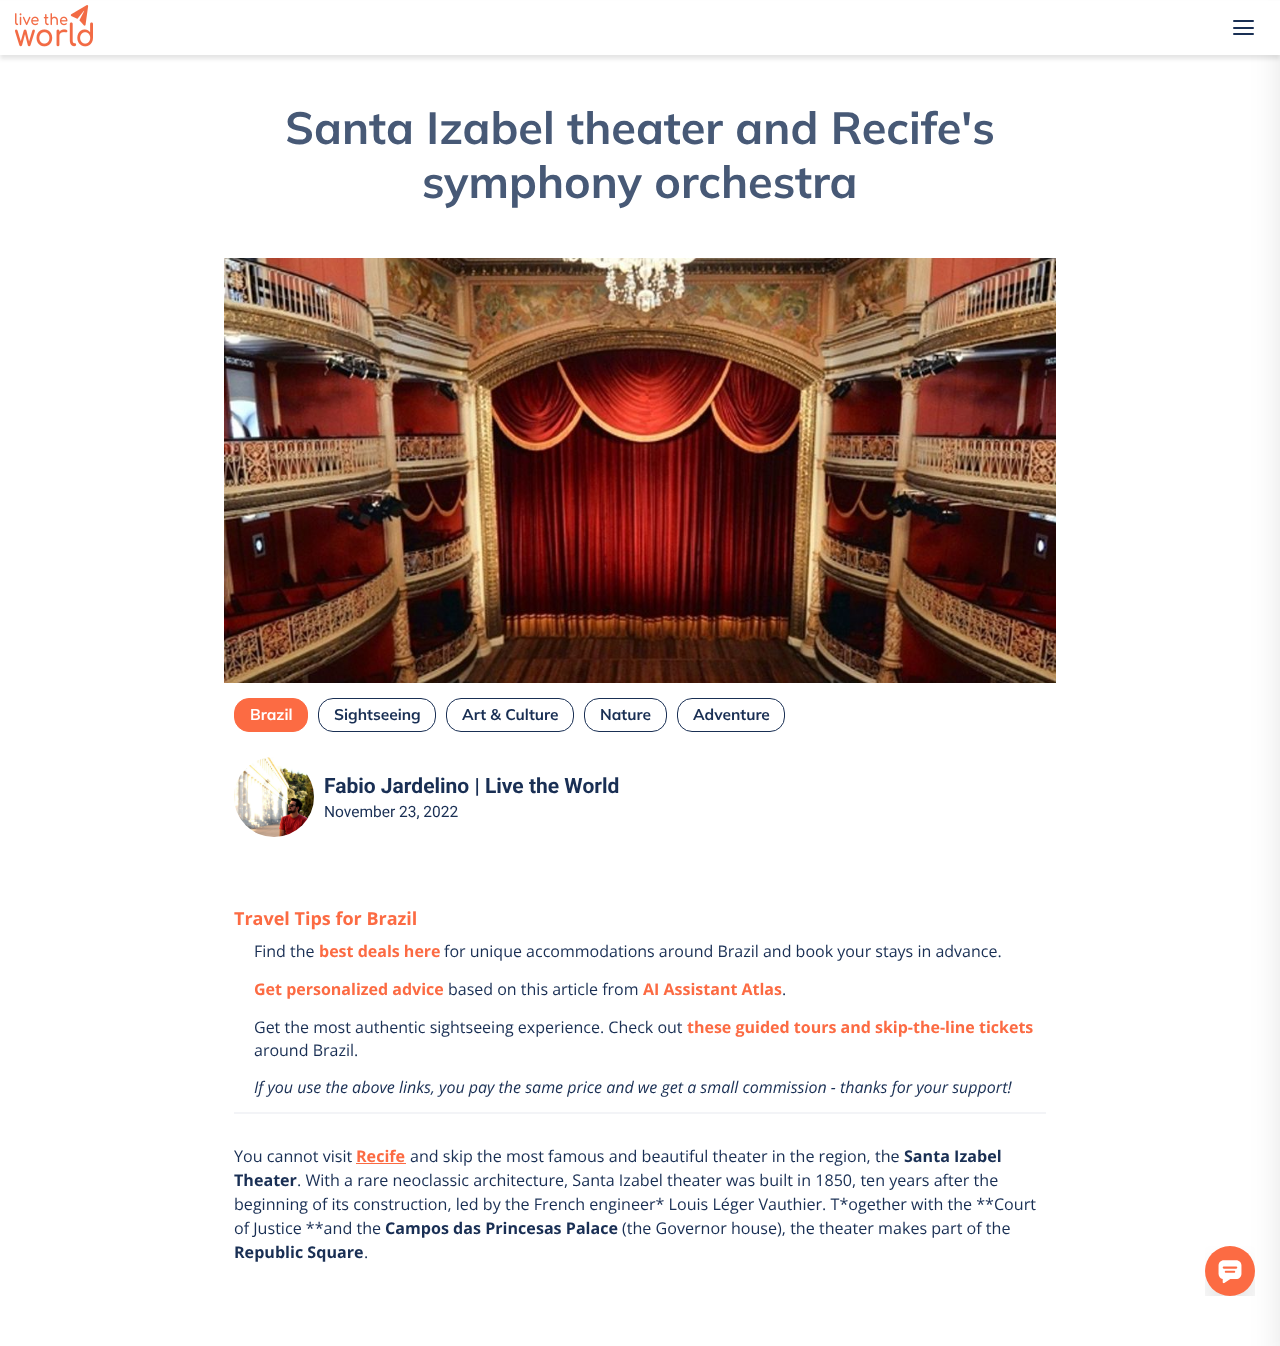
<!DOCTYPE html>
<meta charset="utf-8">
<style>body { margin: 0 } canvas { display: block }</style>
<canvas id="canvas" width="1280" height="1346"></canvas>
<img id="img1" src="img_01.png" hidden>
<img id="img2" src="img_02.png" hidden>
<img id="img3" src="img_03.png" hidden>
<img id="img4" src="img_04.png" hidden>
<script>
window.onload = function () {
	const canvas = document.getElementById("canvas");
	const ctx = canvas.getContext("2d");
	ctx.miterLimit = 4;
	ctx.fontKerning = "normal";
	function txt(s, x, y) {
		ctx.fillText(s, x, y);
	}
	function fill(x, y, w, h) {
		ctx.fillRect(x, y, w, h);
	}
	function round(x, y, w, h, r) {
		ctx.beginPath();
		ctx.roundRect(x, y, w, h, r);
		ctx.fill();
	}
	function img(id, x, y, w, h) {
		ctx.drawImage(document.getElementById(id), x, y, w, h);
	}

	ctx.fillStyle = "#FFFFFF";
	fill(0, 0, 1280, 1346);
	ctx.fillStyle = "rgba(0, 0, 0, 0.1)";
	ctx.filter = "blur(2px)";
	ctx.beginPath();
	ctx.rect(0, 4, 1280, 55);
	ctx.fill();
	ctx.filter = "none";
	ctx.filter = "blur(15px)";
	ctx.beginPath();
	ctx.rect(1280, 20, 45, 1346);
	ctx.fill();
	ctx.filter = "none";
	ctx.fillStyle = "#FFFFFF";
	fill(0, 1, 1280, 54);
	img("img1", 15, 5, 78, 42);
	ctx.fillStyle = "#192F54";
	round(1233, 20, 21, 2, 1);
	round(1233, 27, 21, 2, 1);
	round(1233, 33, 21, 2, 1);
	img("img2", 224, 258, 832, 425);
	ctx.fillStyle = "#FC6B43";
	ctx.beginPath();
	ctx.roundRect(234.5, 698.5, 73, 33, 14.5);
	ctx.fill();
	ctx.strokeStyle = "#FC6B43";
	ctx.stroke();
	ctx.beginPath();
	ctx.roundRect(318.5, 698.5, 117, 33, 14.5);
	ctx.strokeStyle = "#192F54";
	ctx.stroke();
	ctx.beginPath();
	ctx.roundRect(446.5, 698.5, 127, 33, 14.5);
	ctx.stroke();
	ctx.beginPath();
	ctx.roundRect(584.5, 698.5, 82, 33, 14.5);
	ctx.stroke();
	ctx.beginPath();
	ctx.roundRect(677.5, 698.5, 107, 33, 14.5);
	ctx.stroke();
	img("img3", 234, 757, 80, 80);
	ctx.fillStyle = "#F3F4F7";
	fill(234, 1112, 812, 2);
	ctx.fillStyle = "#FC6B43";
	fill(356, 1163, 50, 1);
	img("img4", 1205, 1246, 50, 50);
	ctx.font = "bold 45px Mulish";
	ctx.fillStyle = "#475976";
	txt("Santa Izabel theater and Recife's", 285, 144);
	txt("symphony orchestra", 422, 198);
	ctx.font = "bold 15.5px Mulish";
	ctx.fillStyle = "#FFFFFF";
	txt("Brazil", 250, 720);
	ctx.fillStyle = "#192F54";
	txt("Sightseeing", 334, 720);
	txt("Art & Culture", 462, 720);
	txt("Nature", 600, 720);
	txt("Adventure", 693, 720);
	ctx.font = "bold 21px Roboto";
	txt("Fabio Jardelino | Live the World", 324, 793);
	ctx.font = "15.5px Roboto";
	txt("November 23, 2022", 324, 817);
	ctx.font = "bold 18px Open Sans";
	ctx.fillStyle = "#FC6B43";
	txt("Travel Tips for Brazil", 234, 925);
	ctx.font = "16px Open Sans";
	ctx.fillStyle = "#192F54";
	txt("Find the", 254, 957);
	ctx.font = "bold 16px Open Sans";
	ctx.fillStyle = "#FC6B43";
	txt("best deals here", 319, 957);
	ctx.font = "16px Open Sans";
	ctx.fillStyle = "#192F54";
	txt("for unique accommodations around Brazil and book your stays in advance.", 444, 957);
	ctx.font = "bold 16px Open Sans";
	ctx.fillStyle = "#FC6B43";
	txt("Get personalized advice", 254, 995);
	ctx.font = "16px Open Sans";
	ctx.fillStyle = "#192F54";
	txt("based on this article from", 448, 995);
	ctx.font = "bold 16px Open Sans";
	ctx.fillStyle = "#FC6B43";
	txt("AI Assistant Atlas", 643, 995);
	ctx.font = "16px Open Sans";
	ctx.fillStyle = "#192F54";
	txt(".", 782, 995);
	txt("Get the most authentic sightseeing experience. Check out", 254, 1033);
	ctx.font = "bold 16px Open Sans";
	ctx.fillStyle = "#FC6B43";
	txt("these guided tours and skip-the-line tickets", 687, 1033);
	ctx.font = "16px Open Sans";
	ctx.fillStyle = "#192F54";
	txt("around Brazil.", 254, 1056);
	ctx.font = "italic 16px Open Sans";
	txt("If you use the above links, you pay the same price and we get a small commission - thanks for your support!", 254, 1093);
	ctx.font = "16.1px Open Sans";
	txt("You cannot visit", 234, 1162);
	ctx.font = "bold 16.1px Open Sans";
	ctx.fillStyle = "#FC6B43";
	txt("Recife", 356, 1162);
	ctx.font = "16.1px Open Sans";
	ctx.fillStyle = "#192F54";
	txt("and skip the most famous and beautiful theater in the region, the", 410, 1162);
	ctx.font = "bold 16.1px Open Sans";
	txt("Santa Izabel", 904, 1162);
	txt("Theater", 234, 1186);
	ctx.font = "16.1px Open Sans";
	txt(". With a rare neoclassic architecture, Santa Izabel theater was built in 1850, ten years after the", 297, 1186);
	txt("beginning of its construction, led by the French engineer* Louis Léger Vauthier. T*ogether with the **Court", 234, 1210);
	txt("of Justice **and the", 234, 1234);
	ctx.font = "bold 16.1px Open Sans";
	txt("Campos das Princesas Palace", 385, 1234);
	ctx.font = "16.1px Open Sans";
	txt("(the Governor house), the theater makes part of the", 622, 1234);
	ctx.font = "bold 16.1px Open Sans";
	txt("Republic Square", 234, 1258);
	ctx.font = "16.1px Open Sans";
	txt(".", 364, 1258);
};
</script>
